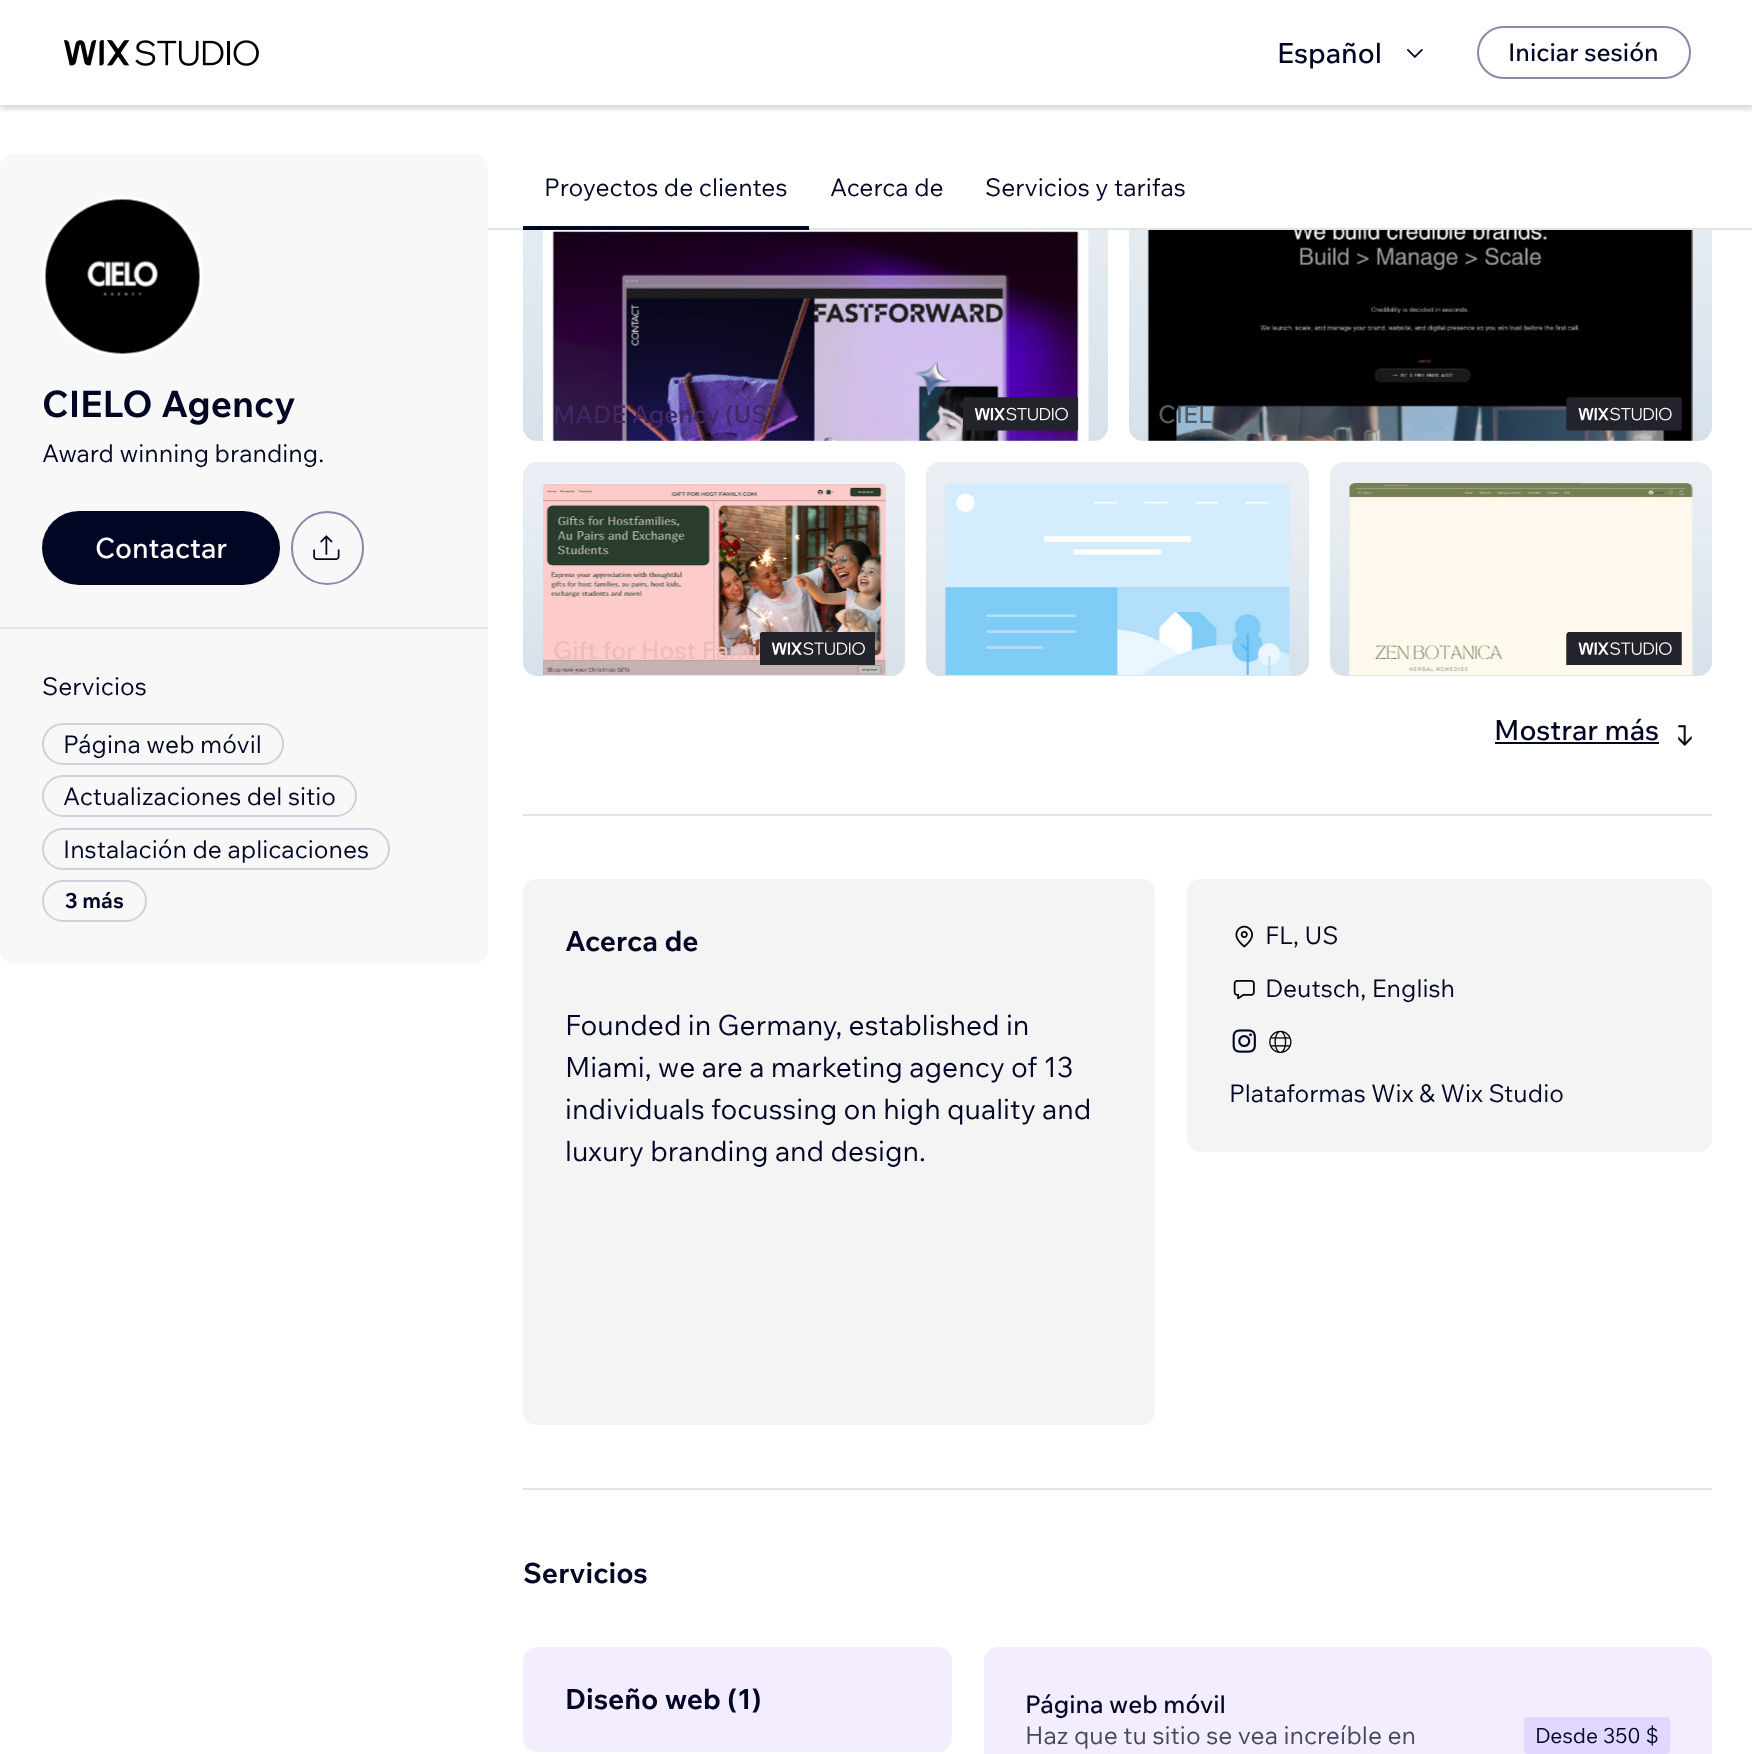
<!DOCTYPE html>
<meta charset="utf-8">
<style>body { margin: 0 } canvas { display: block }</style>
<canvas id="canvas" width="1752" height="1754"></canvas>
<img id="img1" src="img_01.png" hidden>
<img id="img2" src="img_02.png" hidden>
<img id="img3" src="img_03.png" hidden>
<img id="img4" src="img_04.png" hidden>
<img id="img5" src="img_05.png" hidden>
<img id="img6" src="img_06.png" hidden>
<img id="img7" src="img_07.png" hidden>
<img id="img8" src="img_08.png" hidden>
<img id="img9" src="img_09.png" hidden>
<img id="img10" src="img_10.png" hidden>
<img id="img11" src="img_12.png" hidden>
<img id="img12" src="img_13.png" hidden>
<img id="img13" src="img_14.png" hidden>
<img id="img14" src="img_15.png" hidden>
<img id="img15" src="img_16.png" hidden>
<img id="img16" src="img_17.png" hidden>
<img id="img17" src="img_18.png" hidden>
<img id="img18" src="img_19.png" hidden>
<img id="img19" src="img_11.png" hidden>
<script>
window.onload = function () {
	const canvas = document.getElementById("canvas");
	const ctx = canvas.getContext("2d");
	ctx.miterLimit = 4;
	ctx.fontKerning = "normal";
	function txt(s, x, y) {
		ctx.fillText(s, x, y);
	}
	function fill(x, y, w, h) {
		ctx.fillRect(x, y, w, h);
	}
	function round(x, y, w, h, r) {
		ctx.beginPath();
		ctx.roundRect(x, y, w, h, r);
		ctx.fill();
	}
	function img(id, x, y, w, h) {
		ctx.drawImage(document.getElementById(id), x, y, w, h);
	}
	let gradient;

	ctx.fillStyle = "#FFFFFF";
	fill(0, 0, 1752, 1754);
	gradient = ctx.createLinearGradient(816, 114, 816, 441);
	gradient.addColorStop(0, "#EAEFF4");
	gradient.addColorStop(0.5, "#E2EAF0");
	gradient.addColorStop(1, "#D7E1EB");
	ctx.fillStyle = gradient;
	round(523, 114, 585, 327, 14);
	gradient = ctx.createLinearGradient(1420, 114, 1420, 441);
	gradient.addColorStop(0, "#EAEFF4");
	gradient.addColorStop(0.5, "#E2EAF0");
	gradient.addColorStop(1, "#D7E1EB");
	ctx.fillStyle = gradient;
	round(1129, 114, 583, 327, 14);
	ctx.fillStyle = "#FFFFFF";
	fill(523, 114, 1189, 114);
	ctx.save();
	ctx.beginPath();
	ctx.rect(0, 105, 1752, 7);
	ctx.clip();
	ctx.fillStyle = "rgba(0, 6, 36, 0.12)";
	ctx.filter = "blur(3.5px)";
	ctx.beginPath();
	ctx.rect(0, 4, 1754, 105);
	ctx.fill();
	ctx.filter = "none";
	ctx.restore();
	ctx.save();
	ctx.beginPath();
	ctx.rect(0, 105, 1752, 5);
	ctx.clip();
	ctx.fillStyle = "rgba(0, 6, 36, 0.12)";
	ctx.filter = "blur(5px)";
	ctx.beginPath();
	ctx.rect(0, 0, 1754, 105);
	ctx.fill();
	ctx.filter = "none";
	ctx.restore();
	img("img1", 64, 40, 66, 26);
	img("img2", 135, 40, 124, 26);
	img("img3", 1407, 49, 16, 9);
	ctx.beginPath();
	ctx.roundRect(1478, 27, 212, 51, 25.5);
	ctx.strokeStyle = "#868AA5";
	ctx.lineWidth = 2;
	ctx.stroke();
	ctx.fillStyle = "#F8F8F9";
	round(0, 154, 488, 810, 14);
	ctx.beginPath();
	ctx.arc(122.5, 276.5, 78.5, 0, Math.PI * 2);
	ctx.strokeStyle = "#FFFFFF";
	ctx.lineWidth = 4;
	ctx.stroke();
	img("img4", 45, 199, 155, 155);
	ctx.fillStyle = "#000624";
	round(42, 511, 238, 74, 37);
	ctx.beginPath();
	ctx.roundRect(292, 512, 71, 72, 35.5);
	ctx.strokeStyle = "#868AA5";
	ctx.lineWidth = 2;
	ctx.stroke();
	img("img5", 313, 535, 27, 25);
	ctx.fillStyle = "#DFE5EB";
	fill(0, 627, 488, 2);
	ctx.beginPath();
	ctx.roundRect(43, 724, 240, 40, 20);
	ctx.strokeStyle = "#CFD1DC";
	ctx.stroke();
	ctx.beginPath();
	ctx.roundRect(43, 776, 313, 40, 20);
	ctx.stroke();
	ctx.beginPath();
	ctx.roundRect(43, 829, 346, 40, 20);
	ctx.stroke();
	ctx.beginPath();
	ctx.roundRect(43, 881, 103, 40, 20);
	ctx.stroke();
	fill(488, 228, 1264, 2);
	ctx.fillStyle = "#000624";
	fill(523, 226, 286, 4);
	ctx.fillStyle = "#DFE5EB";
	fill(543, 230, 546, 211);
	img("img6", 543, 230, 546, 211);
	img("img7", 963, 397, 115, 34);
	fill(1148, 230, 544, 211);
	img("img8", 1147, 230, 546, 211);
	img("img9", 1566, 397, 116, 34);
	gradient = ctx.createLinearGradient(714, 462, 714, 676);
	gradient.addColorStop(0, "#EAEFF4");
	gradient.addColorStop(0.5, "#E2EAF0");
	gradient.addColorStop(1, "#D7E1EB");
	ctx.fillStyle = gradient;
	round(523, 462, 382, 214, 14);
	ctx.fillStyle = "#DFE5EB";
	ctx.beginPath();
	ctx.roundRect(543, 483, 343, 193, [5, 5, 0, 0]);
	ctx.fill();
	img("img10", 543, 483, 343, 192);
	gradient = ctx.createLinearGradient(1117, 462, 1117, 676);
	gradient.addColorStop(0, "#EAEFF4");
	gradient.addColorStop(0.5, "#E2EAF0");
	gradient.addColorStop(1, "#D7E1EB");
	ctx.fillStyle = gradient;
	round(926, 462, 383, 214, 14);
	ctx.fillStyle = "#DFE5EB";
	ctx.beginPath();
	ctx.roundRect(945, 483, 345, 193, [5, 5, 0, 0]);
	ctx.fill();
	img("img11", 944, 483, 346, 193);
	gradient = ctx.createLinearGradient(1521, 462, 1521, 676);
	gradient.addColorStop(0, "#EAEFF4");
	gradient.addColorStop(0.5, "#E2EAF0");
	gradient.addColorStop(1, "#D7E1EB");
	ctx.fillStyle = gradient;
	round(1330, 462, 382, 214, 14);
	ctx.fillStyle = "#DFE5EB";
	ctx.beginPath();
	ctx.roundRect(1349, 483, 343, 193, [5, 5, 0, 0]);
	ctx.fill();
	img("img12", 1349, 483, 344, 192);
	img("img13", 1566, 632, 116, 33);
	ctx.fillStyle = "#000624";
	fill(1495, 742, 164, 2);
	img("img14", 1678, 725, 14, 21);
	ctx.fillStyle = "#DFE5EB";
	fill(523, 814, 1189, 2);
	ctx.fillStyle = "#F4F4F4";
	round(523, 879, 632, 546, 14);
	round(1187, 879, 525, 273, 14);
	img("img15", 1235, 925, 18, 23);
	img("img16", 1233, 980, 22, 20);
	img("img17", 1232, 1029, 24, 24);
	img("img18", 1269, 1030, 23, 24);
	ctx.fillStyle = "#DFE5EB";
	fill(523, 1488, 1189, 2);
	ctx.fillStyle = "#F4EDFF";
	round(523, 1647, 429, 105, 14);
	round(984, 1647, 728, 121, 14);
	ctx.fillStyle = "#E2D8FF";
	round(1524, 1717, 146, 37, 4);
	ctx.font = "500 28px Wix Madefor Text";
	ctx.fillStyle = "#000624";
	txt("Español", 1277, 63);
	ctx.font = "500 24.5px Wix Madefor Text";
	txt("Iniciar sesión", 1508, 61);
	ctx.font = "bold 36.75px Wix Madefor Text";
	txt("CIELO Agency", 42, 417);
	ctx.font = "24.5px Wix Madefor Text";
	txt("Award winning branding.", 42, 462);
	ctx.font = "500 28px Wix Madefor Text";
	ctx.fillStyle = "#FFFFFF";
	txt("Contactar", 95, 558);
	ctx.font = "24.5px Wix Madefor Text";
	ctx.fillStyle = "#000624";
	txt("Servicios", 42, 695);
	txt("Página web móvil", 63, 753);
	txt("Actualizaciones del sitio", 63, 805);
	txt("Instalación de aplicaciones", 63, 858);
	ctx.font = "bold 21px Wix Madefor Text";
	txt("3 más", 65, 908);
	ctx.font = "24.5px Wix Madefor Text";
	txt("Proyectos de clientes", 544, 196);
	txt("Acerca de", 830, 196);
	txt("Servicios y tarifas", 985, 196);
	ctx.font = "500 24.5px Wix Madefor Text";
	ctx.fillStyle = "#412865";
	txt("MADE Agency (US)", 553, 423);
	ctx.fillStyle = "#505C68";
	txt("CIEL", 1158, 423);
	ctx.fillStyle = "#EBBCB9";
	txt("Gift for Host Famil", 553, 659);
	img("img19", 760, 632, 115, 33);
	ctx.font = "500 28px Wix Madefor Text";
	ctx.fillStyle = "#000624";
	txt("Mostrar más", 1494, 740);
	ctx.font = "bold 28px Wix Madefor Text";
	txt("Acerca de", 565, 951);
	ctx.font = "28px Wix Madefor Text";
	txt("Founded in Germany, established in", 565, 1035);
	txt("Miami, we are a marketing agency of 13", 565, 1077);
	txt("individuals focussing on high quality and", 565, 1119);
	txt("luxury branding and design.", 565, 1161);
	ctx.font = "24.5px Wix Madefor Text";
	txt("FL, US", 1265, 944);
	txt("Deutsch, English", 1265, 997);
	txt("Plataformas", 1229, 1102);
	txt("Wix & Wix Studio", 1371, 1102);
	ctx.font = "bold 28px Wix Madefor Text";
	txt("Servicios", 523, 1583);
	txt("Diseño web (1)", 565, 1709);
	ctx.font = "500 24.5px Wix Madefor Text";
	txt("Página web móvil", 1025, 1713);
	ctx.font = "24.5px Wix Madefor Text";
	ctx.fillStyle = "#44485F";
	txt("Haz que tu sitio se vea increíble en", 1025, 1744);
	ctx.font = "21px Wix Madefor Text";
	ctx.fillStyle = "#000624";
	txt("Desde", 1535, 1743);
	txt("350 $", 1603, 1743);
};
</script>
